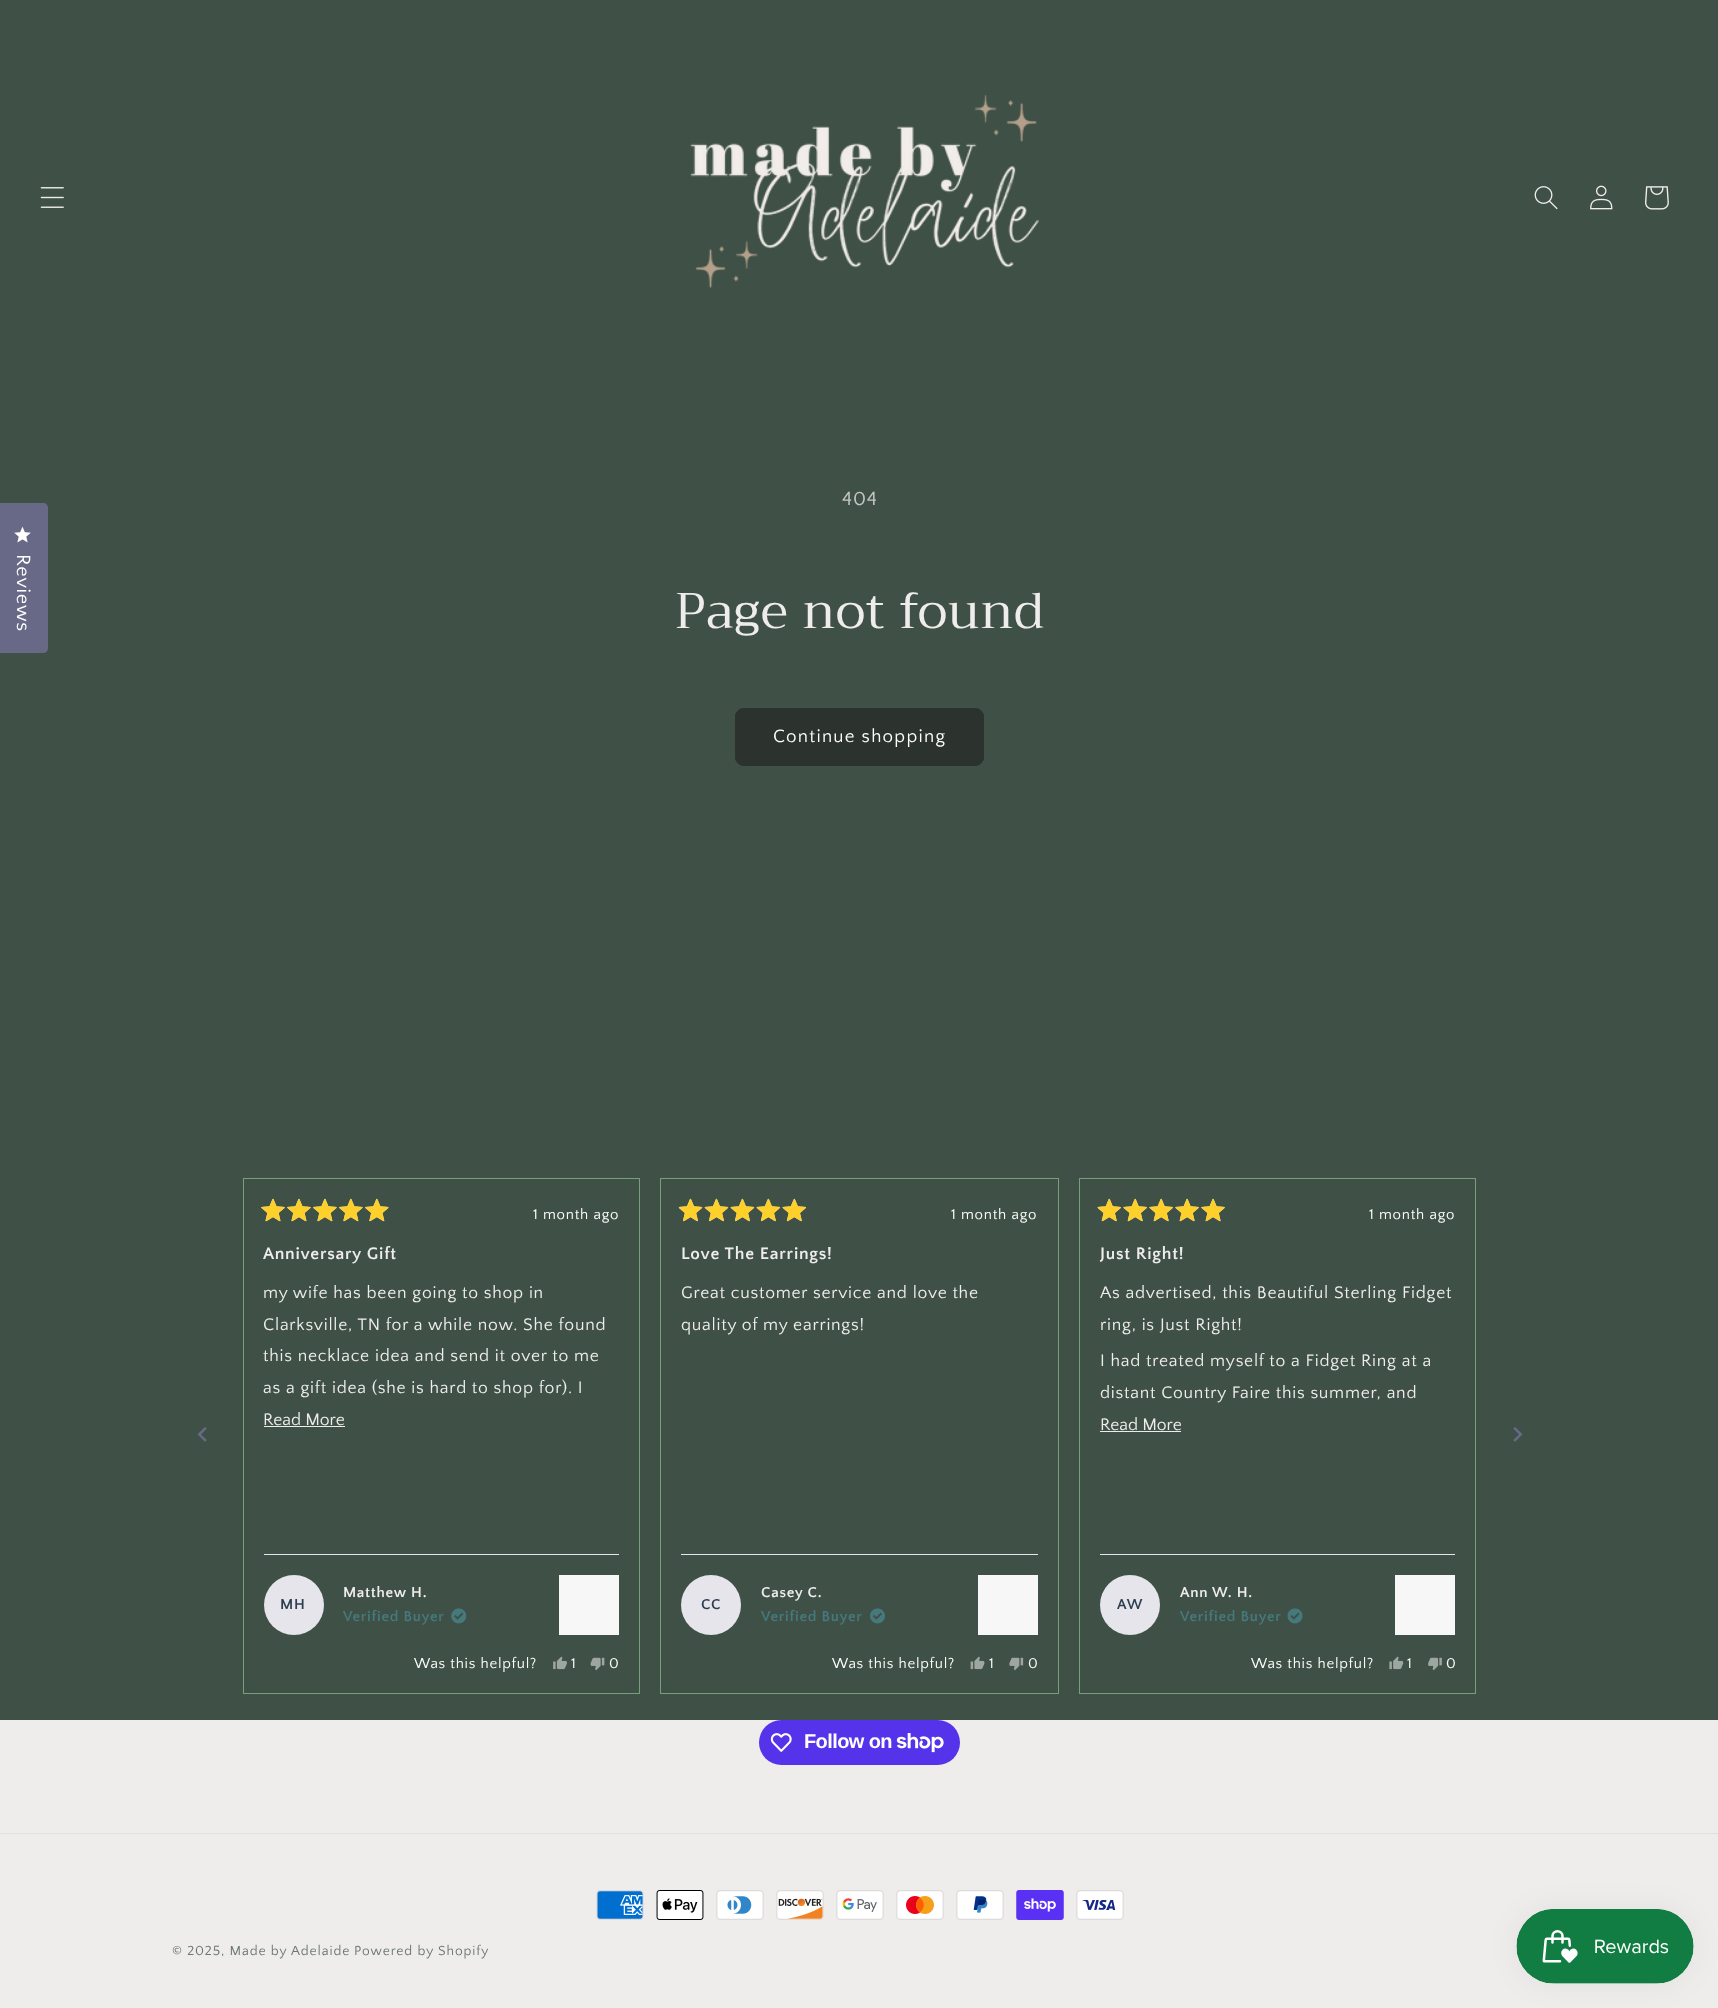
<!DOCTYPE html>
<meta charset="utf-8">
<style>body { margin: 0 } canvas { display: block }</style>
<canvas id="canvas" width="1718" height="2008"></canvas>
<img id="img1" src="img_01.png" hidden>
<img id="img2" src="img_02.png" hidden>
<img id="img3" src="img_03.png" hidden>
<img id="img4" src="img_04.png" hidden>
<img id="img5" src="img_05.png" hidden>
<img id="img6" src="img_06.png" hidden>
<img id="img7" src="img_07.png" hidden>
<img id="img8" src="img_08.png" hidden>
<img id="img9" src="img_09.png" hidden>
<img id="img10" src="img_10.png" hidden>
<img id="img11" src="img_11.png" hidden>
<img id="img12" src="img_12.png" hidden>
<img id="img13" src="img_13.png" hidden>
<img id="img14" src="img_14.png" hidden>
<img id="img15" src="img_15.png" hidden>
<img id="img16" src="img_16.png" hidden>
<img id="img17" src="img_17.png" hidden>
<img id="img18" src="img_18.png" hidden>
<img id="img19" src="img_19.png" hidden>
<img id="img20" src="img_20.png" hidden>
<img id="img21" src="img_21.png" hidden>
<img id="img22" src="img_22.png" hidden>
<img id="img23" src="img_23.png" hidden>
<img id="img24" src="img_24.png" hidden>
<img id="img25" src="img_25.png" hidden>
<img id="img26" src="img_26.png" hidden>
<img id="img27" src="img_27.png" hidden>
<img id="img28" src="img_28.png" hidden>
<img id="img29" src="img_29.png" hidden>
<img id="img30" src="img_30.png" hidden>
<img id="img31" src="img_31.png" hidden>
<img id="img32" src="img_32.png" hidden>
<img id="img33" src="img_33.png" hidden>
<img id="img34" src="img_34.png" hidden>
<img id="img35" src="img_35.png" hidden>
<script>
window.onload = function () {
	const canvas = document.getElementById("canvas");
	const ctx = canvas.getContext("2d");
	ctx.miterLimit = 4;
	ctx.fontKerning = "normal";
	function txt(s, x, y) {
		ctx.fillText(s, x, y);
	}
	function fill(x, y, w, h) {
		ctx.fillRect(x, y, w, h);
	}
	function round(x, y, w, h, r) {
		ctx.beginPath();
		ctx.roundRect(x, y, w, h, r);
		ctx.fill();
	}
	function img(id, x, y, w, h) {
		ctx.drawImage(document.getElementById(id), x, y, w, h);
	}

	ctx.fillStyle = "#3F5147";
	fill(0, 0, 1718, 2008);
	img("img1", 40, 187, 24, 21);
	img("img2", 690, 95, 349, 193);
	img("img3", 1534, 186, 24, 24);
	img("img4", 1590, 185, 23, 25);
	img("img5", 1645, 186, 24, 24);
	ctx.fillStyle = "#676986";
	ctx.beginPath();
	ctx.moveTo(-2, 503);
	ctx.lineTo(43, 503);
	ctx.bezierCurveTo(46, 503, 48, 505, 48, 508);
	ctx.lineTo(48, 648);
	ctx.bezierCurveTo(48, 651, 46, 653, 43, 653);
	ctx.lineTo(-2, 653);
	ctx.closePath();
	ctx.fill();
	img("img6", 14, 526, 17, 17);
	ctx.fillStyle = "#2C332F";
	round(735, 708, 249, 58, 9);
	ctx.beginPath();
	ctx.roundRect(735.5, 708.5, 248, 57, 8.5);
	ctx.strokeStyle = "#2C332F";
	ctx.stroke();
	img("img7", 197, 1427, 10, 15);
	ctx.strokeStyle = "#789E7A";
	ctx.strokeRect(243.5, 1178.5, 396, 515);
	img("img8", 261, 1198, 128, 24);
	img("img9", 261, 1199, 127, 22);
	ctx.fillStyle = "#ECECEC";
	fill(264, 1426, 81, 1);
	ctx.fillStyle = "#E5E5EB";
	fill(264, 1554, 355, 1);
	ctx.beginPath();
	ctx.arc(294, 1605, 30, 0, Math.PI * 2);
	ctx.fill();
	img("img10", 451, 1608, 16, 16);
	ctx.fillStyle = "#F7F7F8";
	fill(559, 1575, 60, 60);
	img("img11", 553, 1656, 14, 14);
	img("img12", 590, 1657, 15, 14);
	ctx.strokeRect(660.5, 1178.5, 398, 515);
	img("img13", 678, 1198, 128, 24);
	img("img14", 679, 1199, 127, 22);
	ctx.fillStyle = "#E5E5EB";
	fill(681, 1554, 357, 1);
	ctx.beginPath();
	ctx.arc(711, 1605, 30, 0, Math.PI * 2);
	ctx.fill();
	img("img15", 870, 1608, 15, 16);
	ctx.fillStyle = "#F7F7F8";
	fill(978, 1575, 60, 60);
	img("img16", 970, 1656, 15, 14);
	img("img17", 1009, 1657, 15, 14);
	ctx.strokeRect(1079.5, 1178.5, 396, 515);
	img("img18", 1097, 1198, 128, 24);
	img("img19", 1098, 1199, 127, 22);
	ctx.fillStyle = "#ECECEC";
	fill(1100, 1431, 81, 1);
	ctx.fillStyle = "#E5E5EB";
	fill(1100, 1554, 355, 1);
	ctx.beginPath();
	ctx.arc(1130, 1605, 30, 0, Math.PI * 2);
	ctx.fill();
	img("img20", 1287, 1608, 16, 16);
	ctx.fillStyle = "#F7F7F8";
	fill(1395, 1575, 60, 60);
	img("img21", 1389, 1656, 15, 14);
	img("img22", 1428, 1657, 14, 14);
	img("img23", 1513, 1427, 10, 15);
	ctx.fillStyle = "#EFECEC";
	fill(0, 1720, 1718, 288);
	ctx.fillStyle = "#5433EB";
	round(759, 1720, 201, 45, 22.5);
	img("img24", 770, 1733, 22, 19);
	img("img25", 896, 1733, 48, 20);
	ctx.fillStyle = "#E1E0DF";
	fill(0, 1833, 1718, 1);
	img("img26", 596, 1890, 48, 30);
	img("img27", 656, 1890, 48, 30);
	img("img28", 716, 1890, 48, 30);
	img("img29", 776, 1890, 48, 30);
	img("img30", 836, 1890, 48, 30);
	img("img31", 896, 1890, 48, 30);
	img("img32", 956, 1890, 48, 30);
	img("img33", 1016, 1890, 48, 30);
	img("img34", 1076, 1890, 48, 30);
	ctx.fillStyle = "rgba(0, 0, 0, 0.05)";
	ctx.filter = "blur(15.5px)";
	ctx.beginPath();
	ctx.roundRect(1516, 1909, 178, 75, 37.5);
	ctx.fill();
	ctx.filter = "none";
	img("img35", 1516, 1909, 178, 75);
	ctx.letterSpacing = "0.75px";
	ctx.font = "20px Quattrocento Sans";
	ctx.fillStyle = "#FFFFFF";
	ctx.save();
	ctx.translate(17, 554);
	ctx.rotate(90.1 * Math.PI / 180);
	ctx.fillText("Reviews", 0, 0);
	ctx.restore();
	ctx.fillStyle = "#C3C5C3";
	txt("404", 842, 505);
	ctx.font = "50px Trirong";
	ctx.fillStyle = "#EFECEC";
	txt("Page not found", 675, 628);
	ctx.letterSpacing = "1.25px";
	ctx.font = "18.75px Quattrocento Sans";
	ctx.fillStyle = "#FFFFFF";
	txt("Continue shopping", 773, 742);
	ctx.letterSpacing = "0.75px";
	ctx.font = "15px Quattrocento Sans";
	txt("1 month ago", 533, 1219);
	ctx.font = "bold 17.5px Quattrocento Sans";
	ctx.fillStyle = "#EFECEC";
	txt("Anniversary Gift", 263, 1259);
	ctx.font = "17.5px Quattrocento Sans";
	txt("my wife has been going to shop in", 263, 1298);
	txt("Clarksville, TN for a while now. She found", 263, 1330);
	txt("this necklace idea and send it over to me", 263, 1361);
	txt("as a gift idea (she is hard to shop for). I", 263, 1393);
	ctx.letterSpacing = "0px";
	txt("Read More", 263, 1425);
	ctx.letterSpacing = "0.75px";
	ctx.font = "bold 15px Quattrocento Sans";
	ctx.fillStyle = "#2C3E50";
	txt("MH", 280, 1609);
	ctx.fillStyle = "#EFECEC";
	txt("Matthew H.", 343, 1597);
	ctx.fillStyle = "#45797C";
	txt("Verified Buyer", 343, 1621);
	ctx.font = "15px Quattrocento Sans";
	ctx.fillStyle = "#FFFFFF";
	txt("Was this helpful?", 414, 1668);
	ctx.letterSpacing = "0px";
	txt("1", 571, 1668);
	txt("0", 609, 1668);
	ctx.letterSpacing = "0.75px";
	txt("1 month ago", 951, 1219);
	ctx.font = "bold 17.5px Quattrocento Sans";
	ctx.fillStyle = "#EFECEC";
	txt("Love The Earrings!", 681, 1259);
	ctx.font = "17.5px Quattrocento Sans";
	txt("Great customer service and love the", 681, 1298);
	txt("quality of my earrings!", 681, 1330);
	ctx.font = "bold 15px Quattrocento Sans";
	ctx.fillStyle = "#2C3E50";
	txt("CC", 701, 1609);
	ctx.fillStyle = "#EFECEC";
	txt("Casey C.", 761, 1597);
	ctx.fillStyle = "#45797C";
	txt("Verified Buyer", 761, 1621);
	ctx.font = "15px Quattrocento Sans";
	ctx.fillStyle = "#FFFFFF";
	txt("Was this helpful?", 832, 1668);
	ctx.letterSpacing = "0px";
	txt("1", 989, 1668);
	txt("0", 1028, 1668);
	ctx.letterSpacing = "0.75px";
	txt("1 month ago", 1369, 1219);
	ctx.font = "bold 17.5px Quattrocento Sans";
	ctx.fillStyle = "#EFECEC";
	txt("Just Right!", 1100, 1259);
	ctx.font = "17.5px Quattrocento Sans";
	txt("As advertised, this Beautiful Sterling Fidget", 1100, 1298);
	txt("ring, is Just Right!", 1100, 1330);
	txt("I had treated myself to a Fidget Ring at a", 1100, 1366);
	txt("distant Country Faire this summer, and", 1100, 1398);
	ctx.letterSpacing = "0px";
	txt("Read More", 1100, 1430);
	ctx.letterSpacing = "0.75px";
	ctx.font = "bold 15px Quattrocento Sans";
	ctx.fillStyle = "#2C3E50";
	txt("AW", 1117, 1609);
	ctx.fillStyle = "#EFECEC";
	txt("Ann W. H.", 1180, 1597);
	ctx.fillStyle = "#45797C";
	txt("Verified Buyer", 1180, 1621);
	ctx.font = "15px Quattrocento Sans";
	ctx.fillStyle = "#FFFFFF";
	txt("Was this helpful?", 1251, 1668);
	ctx.letterSpacing = "0px";
	txt("1", 1407, 1668);
	txt("0", 1446, 1668);
	ctx.letterSpacing = "-0.6px";
	ctx.font = "bold 20px Liberation Sans";
	txt("Follow on", 804, 1748);
	ctx.letterSpacing = "0.9px";
	ctx.font = "13.75px Quattrocento Sans";
	ctx.fillStyle = "#6B7870";
	txt("© 2025, Made by Adelaide", 172, 1955);
	txt("Powered by Shopify", 354, 1955);
};
</script>
